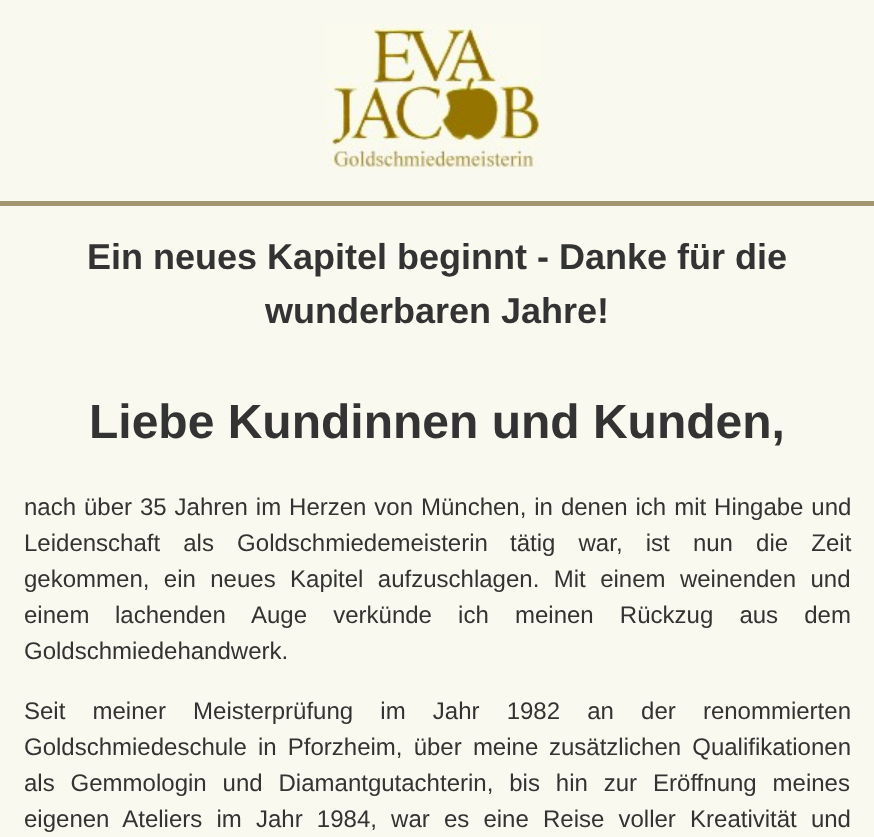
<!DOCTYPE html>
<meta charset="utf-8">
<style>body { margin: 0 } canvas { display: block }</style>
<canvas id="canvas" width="874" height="837"></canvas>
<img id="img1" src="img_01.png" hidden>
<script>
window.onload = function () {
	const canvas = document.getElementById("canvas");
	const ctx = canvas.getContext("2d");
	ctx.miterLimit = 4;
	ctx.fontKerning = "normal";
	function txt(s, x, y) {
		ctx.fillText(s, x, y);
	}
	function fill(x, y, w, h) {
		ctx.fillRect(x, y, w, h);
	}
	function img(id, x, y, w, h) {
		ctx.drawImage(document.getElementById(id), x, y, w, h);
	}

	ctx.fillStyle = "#F9F9EF";
	fill(0, 0, 874, 837);
	ctx.fillStyle = "#A39772";
	fill(0, 201, 874, 5);
	img("img1", 325, 24, 217, 145);
	ctx.font = "bold 36px Liberation Sans";
	ctx.fillStyle = "#333333";
	txt("Ein neues Kapitel beginnt - Danke für die", 87, 269);
	txt("wunderbaren Jahre!", 265, 323);
	ctx.font = "bold 48px Liberation Sans";
	txt("Liebe Kundinnen und Kunden,", 89, 438);
	ctx.wordSpacing = "1.25px";
	ctx.font = "24px Liberation Sans";
	txt("nach über 35 Jahren im Herzen von München, in denen ich mit Hingabe und", 24, 515);
	ctx.wordSpacing = "16.5px";
	txt("Leidenschaft als Goldschmiedemeisterin", 24, 551);
	txt("tätig war, ist nun die Zeit", 510, 551);
	ctx.wordSpacing = "7.75px";
	txt("gekommen, ein neues Kapitel aufzuschlagen. Mit einem weinenden und", 24, 587);
	ctx.wordSpacing = "19px";
	txt("einem lachenden", 24, 623);
	ctx.wordSpacing = "19.5px";
	txt("Auge verkünde ich meinen Rückzug aus dem", 251, 623);
	ctx.wordSpacing = "0px";
	txt("Goldschmiedehandwerk.", 24, 659);
	ctx.wordSpacing = "20.5px";
	txt("Seit meiner Meisterprüfung im Jahr 1982 an der renommierten", 24, 719);
	ctx.wordSpacing = "4.5px";
	txt("Goldschmiedeschule in Pforzheim, über meine", 24, 755);
	txt("zusätzlichen Qualifikationen", 549, 755);
	ctx.wordSpacing = "9.25px";
	txt("als Gemmologin und Diamantgutachterin, bis hin zur Eröffnung meines", 24, 791);
	ctx.wordSpacing = "7.5px";
	txt("eigenen Ateliers im", 24, 827);
	txt("Jahr 1984, war es eine Reise voller Kreativität und", 256, 827);
};
</script>
